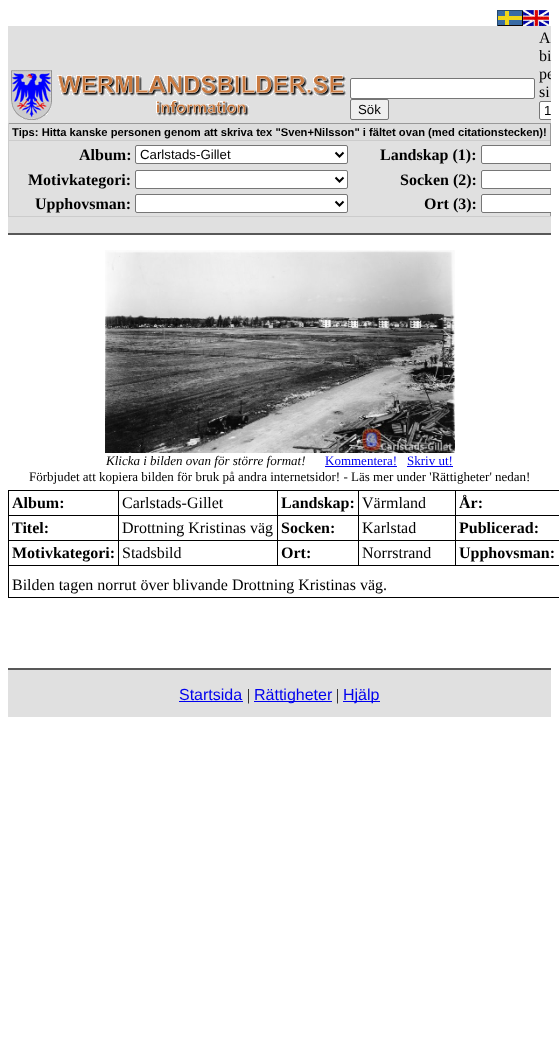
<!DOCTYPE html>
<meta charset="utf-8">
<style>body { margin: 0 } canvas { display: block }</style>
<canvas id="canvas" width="559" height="1061"></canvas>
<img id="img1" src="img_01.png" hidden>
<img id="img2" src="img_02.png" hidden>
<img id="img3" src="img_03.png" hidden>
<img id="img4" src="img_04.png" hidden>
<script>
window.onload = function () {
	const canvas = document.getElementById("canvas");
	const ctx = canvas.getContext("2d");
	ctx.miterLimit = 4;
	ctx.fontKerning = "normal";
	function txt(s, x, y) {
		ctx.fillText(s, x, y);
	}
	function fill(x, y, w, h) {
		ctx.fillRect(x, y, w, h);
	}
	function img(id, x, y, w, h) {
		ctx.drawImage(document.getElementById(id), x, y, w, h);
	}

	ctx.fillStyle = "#FFFFFF";
	fill(0, 0, 559, 1061);
	ctx.fillStyle = "#E0E0E0";
	fill(8, 26, 543, 207);
	ctx.fillStyle = "#585858";
	fill(8, 233, 543, 2);
	img("img1", 497, 10, 26, 16);
	img("img2", 523, 10, 26, 16);
	img("img3", 11, 70, 335, 50);
	ctx.fillStyle = "#FFFFFF";
	ctx.beginPath();
	ctx.roundRect(350.5, 78.5, 184, 20, 1.5);
	ctx.fill();
	ctx.strokeStyle = "#767676";
	ctx.stroke();
	ctx.fillStyle = "#EFEFEF";
	ctx.beginPath();
	ctx.roundRect(350.5, 99.5, 38, 20, 1.5);
	ctx.fill();
	ctx.stroke();
	ctx.fillStyle = "#FFFFFF";
	ctx.beginPath();
	ctx.roundRect(539, 101, 12, 19, [2, 0, 0, 2]);
	ctx.fill();
	ctx.save();
	ctx.beginPath();
	ctx.rect(8, 26, 543, 207);
	ctx.clip();
	ctx.beginPath();
	ctx.roundRect(539.5, 101.5, 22, 18, 1.5);
	ctx.stroke();
	ctx.restore();
	ctx.fillStyle = "#999999";
	fill(8, 123, 543, 1);
	fill(550, 123, 1, 94);
	ctx.fillStyle = "#CCCCCC";
	fill(8, 216, 543, 1);
	fill(8, 123, 1, 94);
	ctx.fillStyle = "#DDDDDD";
	fill(9, 124, 541, 16);
	ctx.fillStyle = "#CCCCCC";
	fill(9, 140, 541, 1);
	ctx.fillStyle = "#FFFFFF";
	ctx.beginPath();
	ctx.roundRect(135.5, 145.5, 212, 18, 1.5);
	ctx.fill();
	ctx.stroke();
	ctx.beginPath();
	ctx.moveTo(335.5, 152.5);
	ctx.lineTo(339.5, 156.5);
	ctx.lineTo(343.5, 152.5);
	ctx.strokeStyle = "#000000";
	ctx.lineWidth = 2;
	ctx.stroke();
	ctx.beginPath();
	ctx.roundRect(481, 145, 70, 19, [2, 0, 0, 2]);
	ctx.fill();
	ctx.save();
	ctx.beginPath();
	ctx.rect(8, 26, 543, 207);
	ctx.clip();
	ctx.beginPath();
	ctx.roundRect(481.5, 145.5, 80, 18, 1.5);
	ctx.strokeStyle = "#767676";
	ctx.lineWidth = 1;
	ctx.stroke();
	ctx.restore();
	ctx.beginPath();
	ctx.roundRect(135.5, 170.5, 212, 18, 1.5);
	ctx.fill();
	ctx.strokeStyle = "#767676";
	ctx.lineWidth = 1;
	ctx.stroke();
	ctx.beginPath();
	ctx.moveTo(335.5, 177.5);
	ctx.lineTo(339.5, 181.5);
	ctx.lineTo(343.5, 177.5);
	ctx.strokeStyle = "#000000";
	ctx.lineWidth = 2;
	ctx.stroke();
	ctx.beginPath();
	ctx.roundRect(481, 170, 70, 19, [2, 0, 0, 2]);
	ctx.fill();
	ctx.save();
	ctx.beginPath();
	ctx.rect(8, 26, 543, 207);
	ctx.clip();
	ctx.beginPath();
	ctx.roundRect(481.5, 170.5, 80, 18, 1.5);
	ctx.strokeStyle = "#767676";
	ctx.lineWidth = 1;
	ctx.stroke();
	ctx.restore();
	ctx.beginPath();
	ctx.roundRect(135.5, 194.5, 212, 18, 1.5);
	ctx.fill();
	ctx.strokeStyle = "#767676";
	ctx.lineWidth = 1;
	ctx.stroke();
	ctx.beginPath();
	ctx.moveTo(335.5, 201.5);
	ctx.lineTo(339.5, 205.5);
	ctx.lineTo(343.5, 201.5);
	ctx.strokeStyle = "#000000";
	ctx.lineWidth = 2;
	ctx.stroke();
	ctx.beginPath();
	ctx.roundRect(481, 194, 70, 19, [2, 0, 0, 2]);
	ctx.fill();
	ctx.save();
	ctx.beginPath();
	ctx.rect(8, 26, 543, 207);
	ctx.clip();
	ctx.beginPath();
	ctx.roundRect(481.5, 194.5, 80, 18, 1.5);
	ctx.strokeStyle = "#767676";
	ctx.lineWidth = 1;
	ctx.stroke();
	ctx.restore();
	img("img4", 105, 250, 350, 203);
	ctx.fillStyle = "#0000EE";
	fill(325, 466, 72, 1);
	fill(407, 466, 46, 1);
	ctx.fillStyle = "#000000";
	fill(8, 490, 551, 1);
	fill(8, 597, 551, 1);
	fill(8, 490, 1, 108);
	fill(9, 515, 550, 1);
	fill(9, 540, 550, 1);
	fill(9, 565, 550, 1);
	fill(118, 491, 1, 75);
	fill(277, 491, 1, 75);
	fill(358, 491, 1, 75);
	fill(455, 491, 1, 75);
	ctx.fillStyle = "#E0E0E0";
	fill(8, 670, 543, 47);
	ctx.fillStyle = "#585858";
	fill(8, 668, 543, 2);
	ctx.fillStyle = "#0000EE";
	fill(179, 701, 64, 1);
	fill(254, 701, 78, 1);
	fill(343, 701, 37, 1);
	ctx.font = "13.25px Liberation Sans";
	ctx.fillStyle = "#000000";
	txt("Sök", 358, 114);
	ctx.font = "16px Liberation Serif";
	txt("A", 539, 43);
	txt("bi", 539, 61);
	ctx.save();
	ctx.beginPath();
	ctx.rect(8, 26, 543, 207);
	ctx.clip();
	txt("pe", 539, 79);
	ctx.restore();
	txt("si", 539, 97);
	ctx.font = "13.25px Liberation Sans";
	txt("1", 544, 115);
	ctx.font = "bold 11.2px Liberation Sans";
	txt("Tips: Hitta kanske personen genom att skriva tex \"Sven+Nilsson\" i fältet ovan (med citationstecken)!", 12, 136);
	ctx.font = "bold 16px Liberation Serif";
	txt("Album:", 79, 160);
	ctx.font = "13.25px Liberation Sans";
	txt("Carlstads-Gillet", 140, 159);
	ctx.font = "bold 16px Liberation Serif";
	txt("Landskap (1):", 380, 160);
	txt("Motivkategori:", 28, 185);
	txt("Socken (2):", 400, 185);
	txt("Upphovsman:", 35, 209);
	txt("Ort (3):", 424, 209);
	ctx.font = "italic 13px Liberation Serif";
	txt("Klicka i bilden ovan för större format!", 106, 465);
	ctx.font = "13px Liberation Serif";
	ctx.fillStyle = "#0000EE";
	txt("Kommentera!", 325, 465);
	txt("Skriv ut!", 407, 465);
	ctx.fillStyle = "#000000";
	txt("Förbjudet att kopiera bilden för bruk på andra internetsidor! - Läs mer under 'Rättigheter' nedan!", 29, 481);
	ctx.font = "bold 16px Liberation Serif";
	txt("Album:", 12, 508);
	ctx.font = "16px Liberation Serif";
	txt("Carlstads-Gillet", 122, 508);
	ctx.font = "bold 16px Liberation Serif";
	txt("Landskap:", 281, 508);
	ctx.font = "16px Liberation Serif";
	txt("Värmland", 362, 508);
	ctx.font = "bold 16px Liberation Serif";
	txt("År:", 459, 508);
	txt("Titel:", 12, 533);
	ctx.font = "16px Liberation Serif";
	txt("Drottning Kristinas väg", 122, 533);
	ctx.font = "bold 16px Liberation Serif";
	txt("Socken:", 281, 533);
	ctx.font = "16px Liberation Serif";
	txt("Karlstad", 362, 533);
	ctx.font = "bold 16px Liberation Serif";
	txt("Publicerad:", 459, 533);
	txt("Motivkategori:", 12, 558);
	ctx.font = "16px Liberation Serif";
	txt("Stadsbild", 122, 558);
	ctx.font = "bold 16px Liberation Serif";
	txt("Ort:", 281, 558);
	ctx.font = "16px Liberation Serif";
	txt("Norrstrand", 362, 558);
	ctx.font = "bold 16px Liberation Serif";
	txt("Upphovsman:", 459, 558);
	ctx.font = "16px Liberation Serif";
	txt("Bilden tagen norrut över blivande Drottning Kristinas väg.", 12, 590);
	ctx.font = "16px Liberation Sans";
	ctx.fillStyle = "#0000EE";
	txt("Startsida", 179, 700);
	ctx.font = "16px Liberation Serif";
	ctx.fillStyle = "#000000";
	txt("|", 247, 700);
	ctx.font = "16px Liberation Sans";
	ctx.fillStyle = "#0000EE";
	txt("Rättigheter", 254, 700);
	ctx.font = "16px Liberation Serif";
	ctx.fillStyle = "#000000";
	txt("|", 336, 700);
	ctx.font = "16px Liberation Sans";
	ctx.fillStyle = "#0000EE";
	txt("Hjälp", 343, 700);
};
</script>
